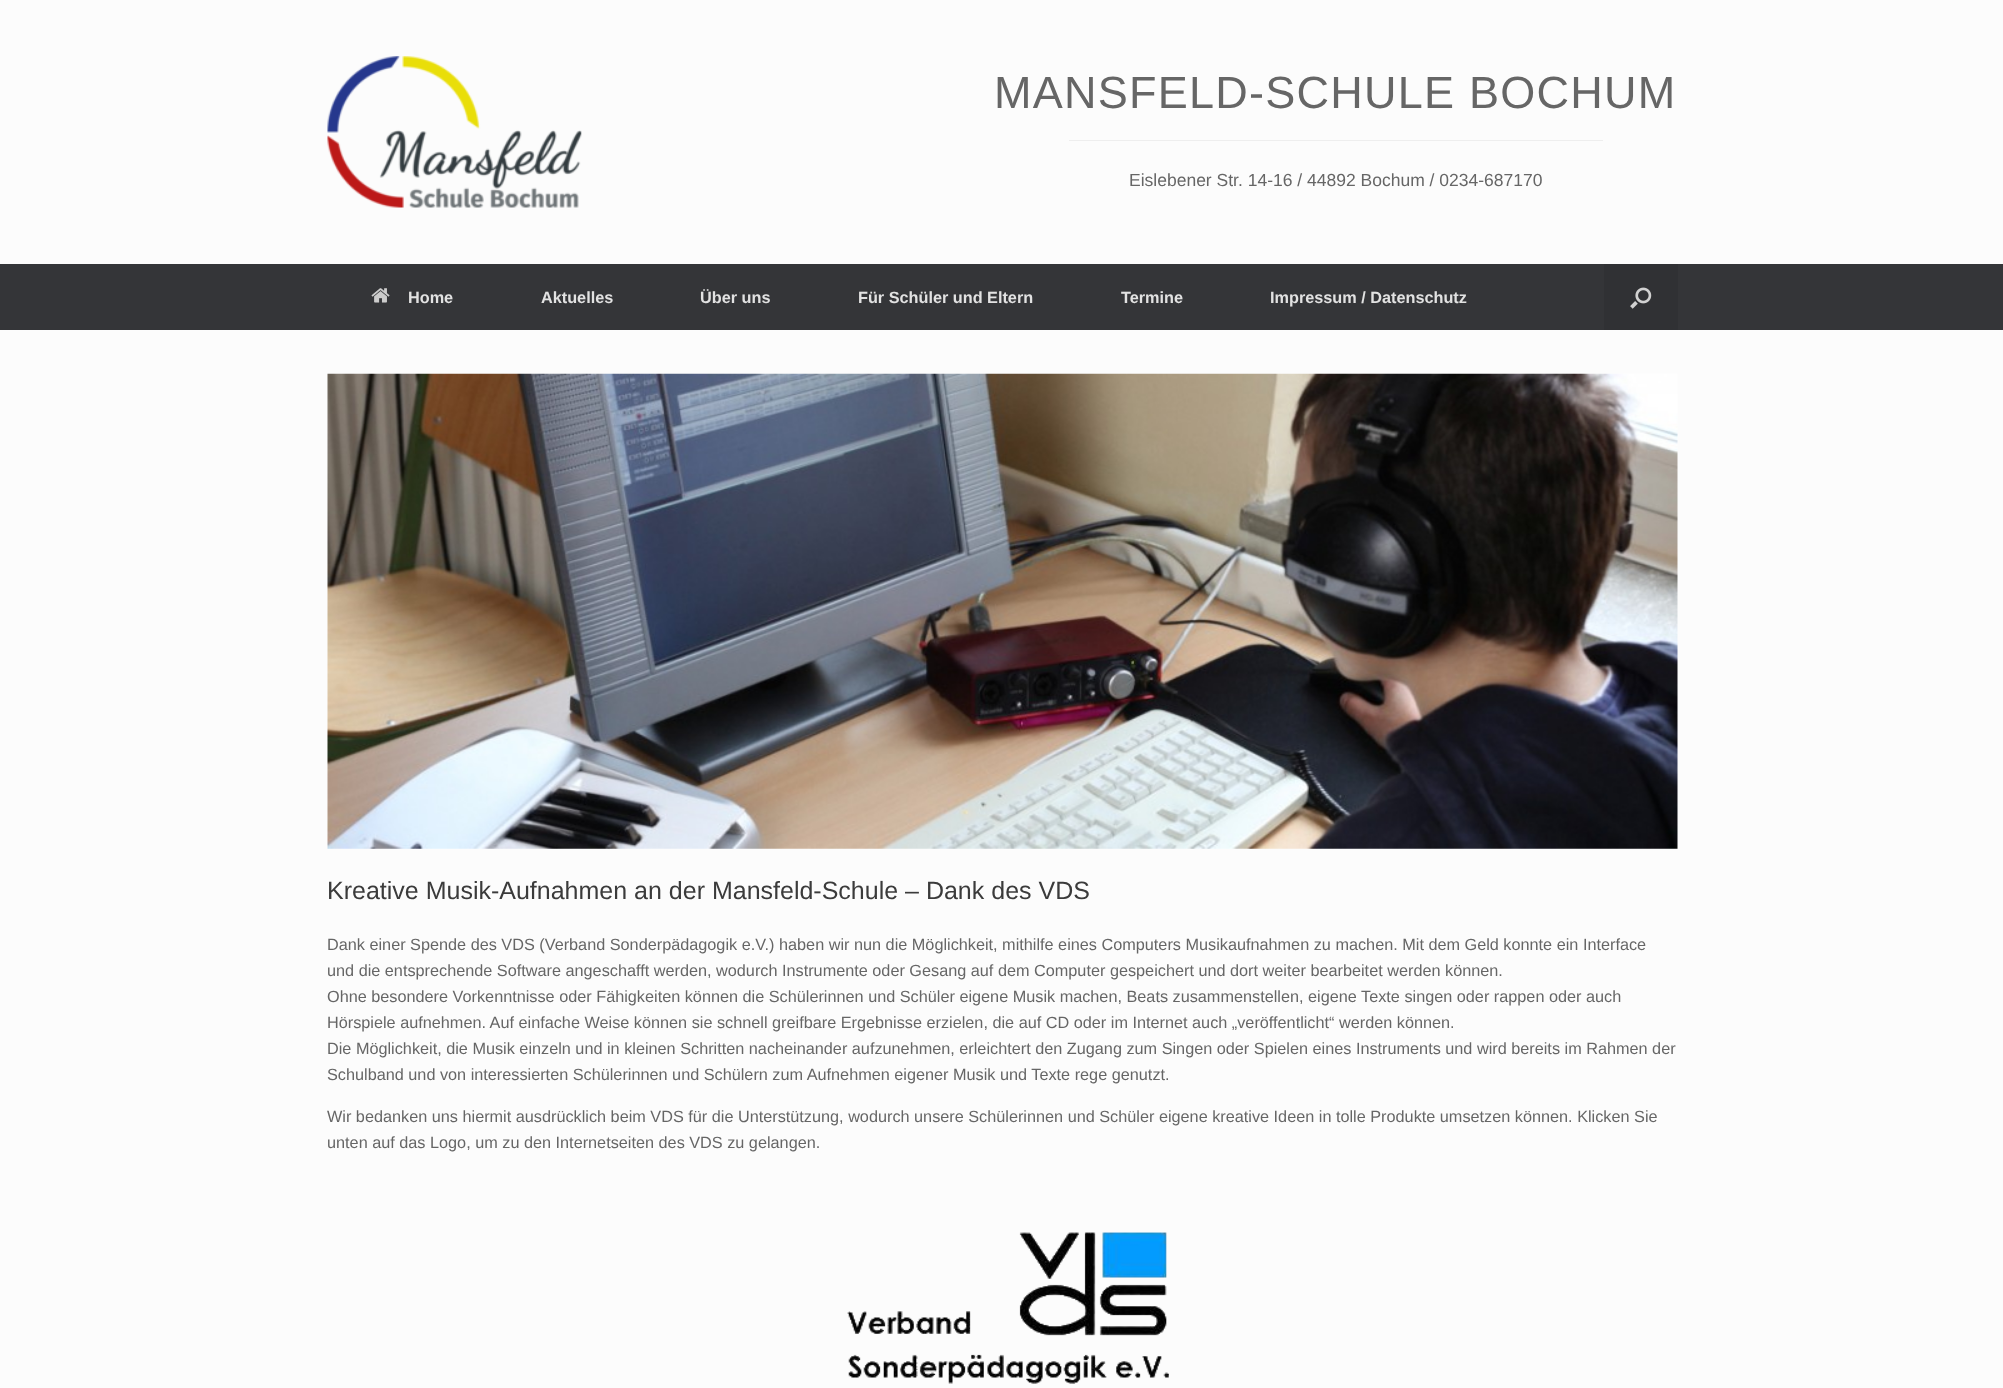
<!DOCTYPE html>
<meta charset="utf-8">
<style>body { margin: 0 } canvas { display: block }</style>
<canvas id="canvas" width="2003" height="1388"></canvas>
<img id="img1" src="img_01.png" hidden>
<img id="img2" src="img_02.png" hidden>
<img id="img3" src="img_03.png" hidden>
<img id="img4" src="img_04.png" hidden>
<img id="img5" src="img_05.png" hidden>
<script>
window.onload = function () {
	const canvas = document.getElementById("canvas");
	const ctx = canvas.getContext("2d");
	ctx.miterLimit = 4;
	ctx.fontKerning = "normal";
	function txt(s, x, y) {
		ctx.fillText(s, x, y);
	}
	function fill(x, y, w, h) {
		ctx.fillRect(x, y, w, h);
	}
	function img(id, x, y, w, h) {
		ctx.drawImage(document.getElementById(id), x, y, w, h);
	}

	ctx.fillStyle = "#FCFCFC";
	fill(0, 0, 2003, 1388);
	img("img1", 327, 56, 255, 152);
	ctx.fillStyle = "#EEEEEE";
	fill(1069, 140, 534, 1);
	ctx.fillStyle = "#343538";
	fill(0, 264, 2003, 66);
	img("img2", 371, 288, 19, 15);
	ctx.fillStyle = "#303134";
	fill(1604, 264, 74, 66);
	img("img3", 1630, 287, 22, 22);
	img("img4", 327, 373, 1351, 476);
	img("img5", 847, 1232, 322, 152);
	ctx.letterSpacing = "1.25px";
	ctx.font = "45px Liberation Sans";
	ctx.fillStyle = "#666666";
	txt("MANSFELD-SCHULE BOCHUM", 994, 108);
	ctx.letterSpacing = "0px";
	ctx.font = "17.5px Liberation Sans";
	txt("Eislebener Str. 14-16 / 44892 Bochum / 0234-687170", 1129, 186);
	ctx.font = "bold 16.25px Liberation Sans";
	ctx.fillStyle = "#E2E2E2";
	txt("Home", 408, 303);
	txt("Aktuelles", 541, 303);
	txt("Über uns", 700, 303);
	txt("Für Schüler und Eltern", 858, 303);
	txt("Termine", 1121, 303);
	txt("Impressum / Datenschutz", 1270, 303);
	ctx.font = "25px Liberation Sans";
	ctx.fillStyle = "#3B3B3B";
	txt("Kreative Musik-Aufnahmen an der Mansfeld-Schule – Dank des VDS", 327, 899);
	ctx.font = "16.25px Liberation Sans";
	ctx.fillStyle = "#666666";
	txt("Dank einer Spende des VDS (Verband Sonderpädagogik e.V.) haben wir nun die Möglichkeit, mithilfe eines Computers Musikaufnahmen zu machen. Mit dem Geld konnte ein Interface", 327, 950);
	txt("und die entsprechende Software angeschafft werden, wodurch Instrumente oder Gesang auf dem Computer gespeichert und dort weiter bearbeitet werden können.", 327, 976);
	txt("Ohne besondere Vorkenntnisse oder Fähigkeiten können die Schülerinnen und Schüler eigene Musik machen, Beats zusammenstellen, eigene Texte singen oder rappen oder auch", 327, 1002);
	txt("Hörspiele aufnehmen. Auf einfache Weise können sie schnell greifbare Ergebnisse erzielen, die auf CD oder im Internet auch „veröffentlicht“ werden können.", 327, 1028);
	txt("Die Möglichkeit, die Musik einzeln und in kleinen Schritten nacheinander aufzunehmen, erleichtert den Zugang zum Singen oder Spielen eines Instruments und wird bereits im Rahmen der", 327, 1054);
	txt("Schulband und von interessierten Schülerinnen und Schülern zum Aufnehmen eigener Musik und Texte rege genutzt.", 327, 1080);
	txt("Wir bedanken uns hiermit ausdrücklich beim VDS für die Unterstützung, wodurch unsere Schülerinnen und Schüler eigene kreative Ideen in tolle Produkte umsetzen können. Klicken Sie", 327, 1122);
	txt("unten auf das Logo, um zu den Internetseiten des VDS zu gelangen.", 327, 1148);
};
</script>
